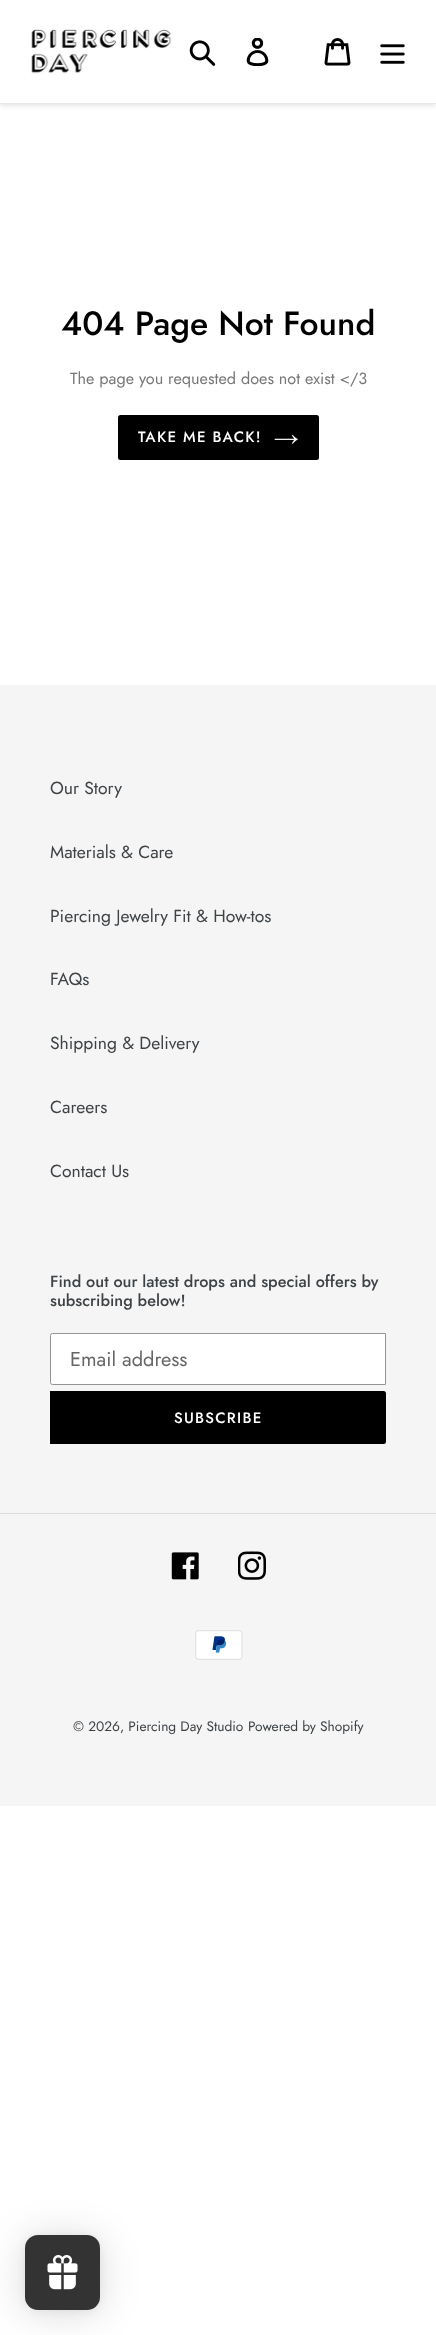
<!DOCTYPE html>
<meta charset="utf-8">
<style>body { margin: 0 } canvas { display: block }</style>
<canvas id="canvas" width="436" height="2335"></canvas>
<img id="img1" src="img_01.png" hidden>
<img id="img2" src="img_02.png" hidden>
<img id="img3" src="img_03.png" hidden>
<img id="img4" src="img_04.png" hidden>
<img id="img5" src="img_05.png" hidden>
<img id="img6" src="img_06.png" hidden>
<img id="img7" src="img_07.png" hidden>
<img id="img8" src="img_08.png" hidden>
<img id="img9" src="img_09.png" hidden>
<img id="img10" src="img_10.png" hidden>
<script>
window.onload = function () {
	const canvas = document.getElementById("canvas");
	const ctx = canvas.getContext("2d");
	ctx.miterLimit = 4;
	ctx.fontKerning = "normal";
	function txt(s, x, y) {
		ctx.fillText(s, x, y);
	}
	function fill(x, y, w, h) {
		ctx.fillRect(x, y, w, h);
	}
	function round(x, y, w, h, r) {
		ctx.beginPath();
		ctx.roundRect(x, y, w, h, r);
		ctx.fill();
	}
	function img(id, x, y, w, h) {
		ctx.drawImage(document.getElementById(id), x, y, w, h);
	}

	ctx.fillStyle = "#FFFFFF";
	fill(0, 0, 436, 2335);
	ctx.fillStyle = "rgba(0, 0, 0, 0.1)";
	ctx.filter = "blur(2.5px)";
	ctx.beginPath();
	ctx.rect(0, 3, 436, 103);
	ctx.fill();
	ctx.filter = "none";
	ctx.fillStyle = "#FFFFFF";
	fill(0, 0, 436, 103);
	ctx.fillStyle = "#E8E9EB";
	fill(0, 103, 436, 1);
	img("img1", 31, 29, 141, 45);
	img("img2", 189, 40, 27, 26);
	img("img3", 246, 38, 23, 28);
	img("img4", 324, 38, 27, 28);
	img("img5", 380, 44, 25, 20);
	ctx.fillStyle = "#000000";
	round(118, 415, 201, 45, 2.5);
	img("img6", 274, 434, 24, 10);
	ctx.fillStyle = "#F5F5F5";
	fill(0, 685, 436, 1121);
	ctx.fillStyle = "#FFFFFF";
	ctx.beginPath();
	ctx.roundRect(50.5, 1333.5, 335, 51, [2, 0, 0, 2]);
	ctx.fill();
	ctx.strokeStyle = "#949494";
	ctx.stroke();
	ctx.fillStyle = "#000000";
	ctx.beginPath();
	ctx.roundRect(50, 1391, 336, 53, [0, 2.5, 2.5, 0]);
	ctx.fill();
	ctx.fillStyle = "#DCDCDC";
	fill(0, 1513, 436, 1);
	img("img7", 171, 1552, 28, 28);
	img("img8", 238, 1551, 28, 29);
	img("img9", 195, 1630, 48, 30);
	ctx.fillStyle = "rgba(0, 0, 0, 0.15)";
	ctx.filter = "blur(19px)";
	ctx.beginPath();
	ctx.roundRect(25, 2238, 75, 75, 13);
	ctx.fill();
	ctx.filter = "none";
	ctx.fillStyle = "rgba(0, 0, 0, 0.05)";
	ctx.filter = "blur(4px)";
	ctx.beginPath();
	ctx.roundRect(25, 2236, 75, 75, 13);
	ctx.fill();
	ctx.filter = "none";
	ctx.fillStyle = "#333333";
	round(25, 2235, 75, 75, 13);
	img("img10", 47, 2255, 31, 35);
	ctx.font = "500 33.75px Jost";
	ctx.fillStyle = "#000000";
	txt("404 Page Not Found", 61, 335);
	ctx.font = "16.25px Jost";
	ctx.fillStyle = "#777777";
	txt("The page you requested does not exist <\/3", 70, 384);
	ctx.letterSpacing = "1.25px";
	ctx.font = "500 15px Jost";
	ctx.fillStyle = "#FFFFFF";
	txt("TAKE ME BACK!", 138, 442);
	ctx.letterSpacing = "0px";
	ctx.font = "17.5px Jost";
	ctx.fillStyle = "#3D4246";
	txt("Our Story", 50, 794);
	txt("Materials & Care", 50, 858);
	txt("Piercing Jewelry Fit & How-tos", 50, 922);
	txt("FAQs", 50, 985);
	txt("Shipping & Delivery", 50, 1049);
	txt("Careers", 50, 1113);
	txt("Contact Us", 50, 1177);
	ctx.font = "500 16.25px Jost";
	txt("Find out our latest drops and special offers by", 50, 1287);
	txt("subscribing below!", 50, 1306);
	ctx.font = "20px Jost";
	ctx.fillStyle = "#666666";
	txt("Email address", 70, 1366);
	ctx.letterSpacing = "1.25px";
	ctx.font = "500 15px Jost";
	ctx.fillStyle = "#FFFFFF";
	txt("SUBSCRIBE", 174, 1423);
	ctx.letterSpacing = "0px";
	ctx.font = "13.75px Jost";
	ctx.fillStyle = "#3D4246";
	txt("© 2026, Piercing Day Studio", 73, 1731);
	txt("Powered by Shopify", 248, 1731);
};
</script>
